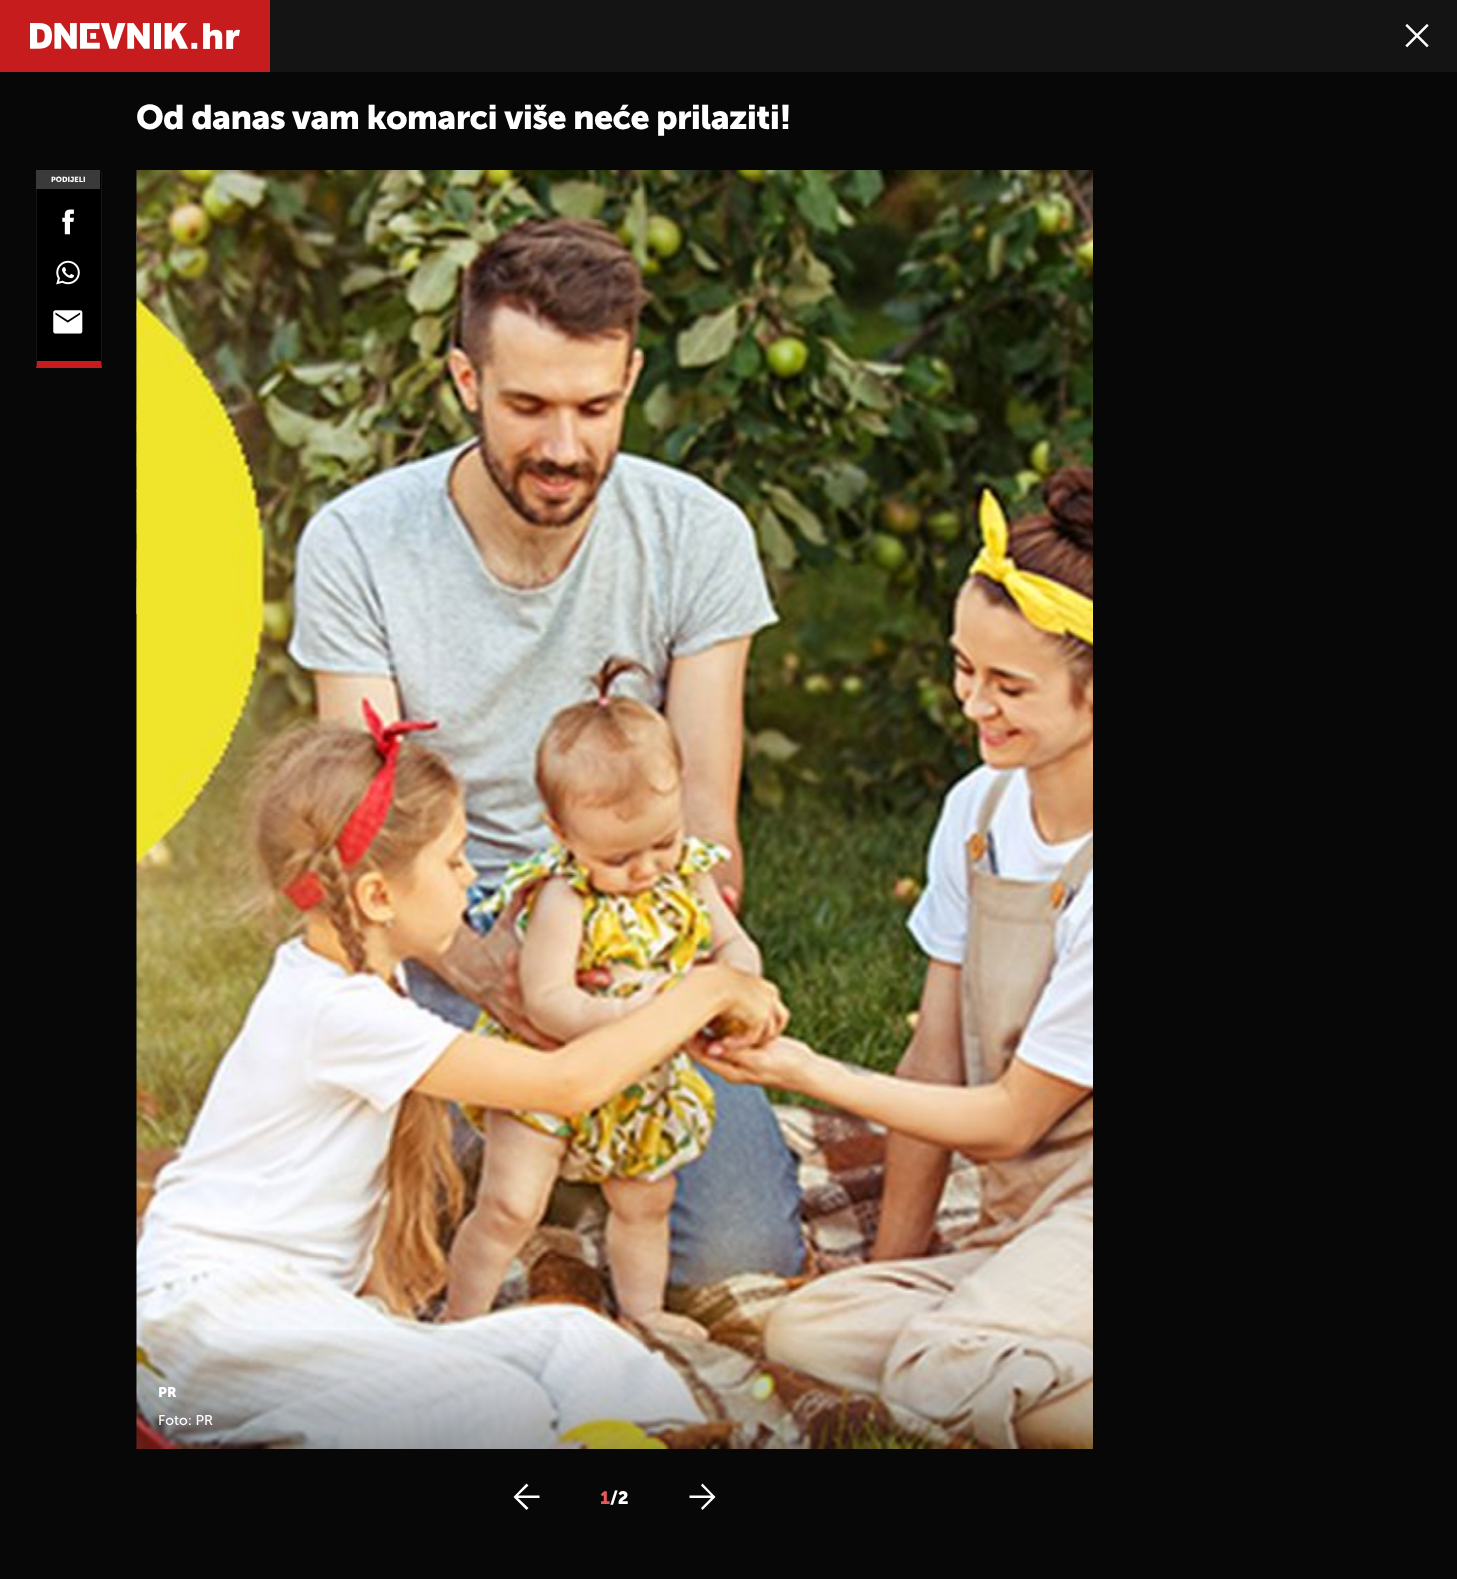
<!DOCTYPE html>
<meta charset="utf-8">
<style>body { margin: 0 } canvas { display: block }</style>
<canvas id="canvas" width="1457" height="1579"></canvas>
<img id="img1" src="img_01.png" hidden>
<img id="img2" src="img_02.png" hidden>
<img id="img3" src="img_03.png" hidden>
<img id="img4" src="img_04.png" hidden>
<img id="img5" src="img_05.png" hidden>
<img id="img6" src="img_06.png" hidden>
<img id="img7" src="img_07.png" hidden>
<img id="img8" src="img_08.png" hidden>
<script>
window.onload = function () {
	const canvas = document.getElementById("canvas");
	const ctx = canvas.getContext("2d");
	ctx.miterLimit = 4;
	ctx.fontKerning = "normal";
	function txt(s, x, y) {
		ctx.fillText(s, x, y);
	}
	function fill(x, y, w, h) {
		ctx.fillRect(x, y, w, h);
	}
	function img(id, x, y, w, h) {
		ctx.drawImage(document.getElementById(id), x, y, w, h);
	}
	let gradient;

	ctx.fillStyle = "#070707";
	fill(0, 0, 1457, 1579);
	ctx.fillStyle = "#141414";
	fill(270, 0, 1187, 72);
	ctx.fillStyle = "#C71C1D";
	fill(0, 0, 270, 72);
	img("img1", 30, 23, 210, 26);
	img("img2", 1405, 24, 24, 24);
	ctx.fillStyle = "#000000";
	fill(37, 173, 64, 188);
	ctx.fillStyle = "#141414";
	fill(100, 172, 2, 1);
	ctx.beginPath();
	ctx.moveTo(102, 172);
	ctx.lineTo(102, 368);
	ctx.lineTo(101, 361);
	ctx.lineTo(101, 173);
	ctx.closePath();
	ctx.fill();
	ctx.fillStyle = "#C71C1D";
	ctx.beginPath();
	ctx.moveTo(102, 368);
	ctx.lineTo(36, 368);
	ctx.lineTo(37, 361);
	ctx.lineTo(101, 361);
	ctx.closePath();
	ctx.fill();
	ctx.fillStyle = "#141414";
	ctx.beginPath();
	ctx.moveTo(36, 368);
	ctx.lineTo(36, 172);
	ctx.lineTo(37, 173);
	ctx.lineTo(37, 361);
	ctx.closePath();
	ctx.fill();
	ctx.fillStyle = "#3A3A3A";
	fill(36, 170, 64, 19);
	img("img3", 62, 209, 12, 26);
	img("img4", 56, 260, 24, 25);
	img("img5", 53, 310, 30, 24);
	img("img6", 136, 231, 1, 303);
	img("img7", 136, 549, 1, 65);
	img("img8", 136, 170, 957, 1279);
	gradient = ctx.createLinearGradient(615, 1449, 615, 1323);
	gradient.addColorStop(0, "rgba(20, 20, 20, 0.4)");
	gradient.addColorStop(1, "rgba(20, 20, 20, 0)");
	ctx.fillStyle = gradient;
	fill(136, 1330, 957, 119);
	ctx.fillStyle = "#FFFFFF";
	ctx.beginPath();
	ctx.moveTo(526.5, 1510);
	ctx.lineTo(528.5, 1508);
	ctx.lineTo(518, 1498);
	ctx.lineTo(539.5, 1498);
	ctx.lineTo(539.5, 1495.5);
	ctx.lineTo(518, 1495.5);
	ctx.lineTo(528.5, 1485.5);
	ctx.lineTo(526.5, 1483.5);
	ctx.lineTo(513.5, 1497);
	ctx.closePath();
	ctx.fill();
	ctx.beginPath();
	ctx.moveTo(702.5, 1510);
	ctx.lineTo(701, 1508);
	ctx.lineTo(711, 1498);
	ctx.lineTo(689.5, 1498);
	ctx.lineTo(689.5, 1495.5);
	ctx.lineTo(711, 1495.5);
	ctx.lineTo(701, 1485.5);
	ctx.lineTo(702.5, 1483.5);
	ctx.lineTo(715.5, 1497);
	ctx.closePath();
	ctx.fill();
	ctx.letterSpacing = "-0.7px";
	ctx.font = "34px Museo Sans";
	txt("Od danas vam komarci više neće prilaziti!", 136, 129);
	ctx.letterSpacing = "0px";
	ctx.font = "7.5px Museo Sans";
	txt("PODIJELI", 51, 182);
	ctx.font = "14px Museo Sans";
	txt("PR", 158, 1397);
	ctx.font = "14px 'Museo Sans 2'";
	txt("Foto: PR", 158, 1425);
	ctx.font = "18px Museo Sans";
	ctx.fillStyle = "#E95858";
	txt("1", 600, 1504);
	ctx.fillStyle = "#FFFFFF";
	txt("/2", 610, 1504);
};
</script>
